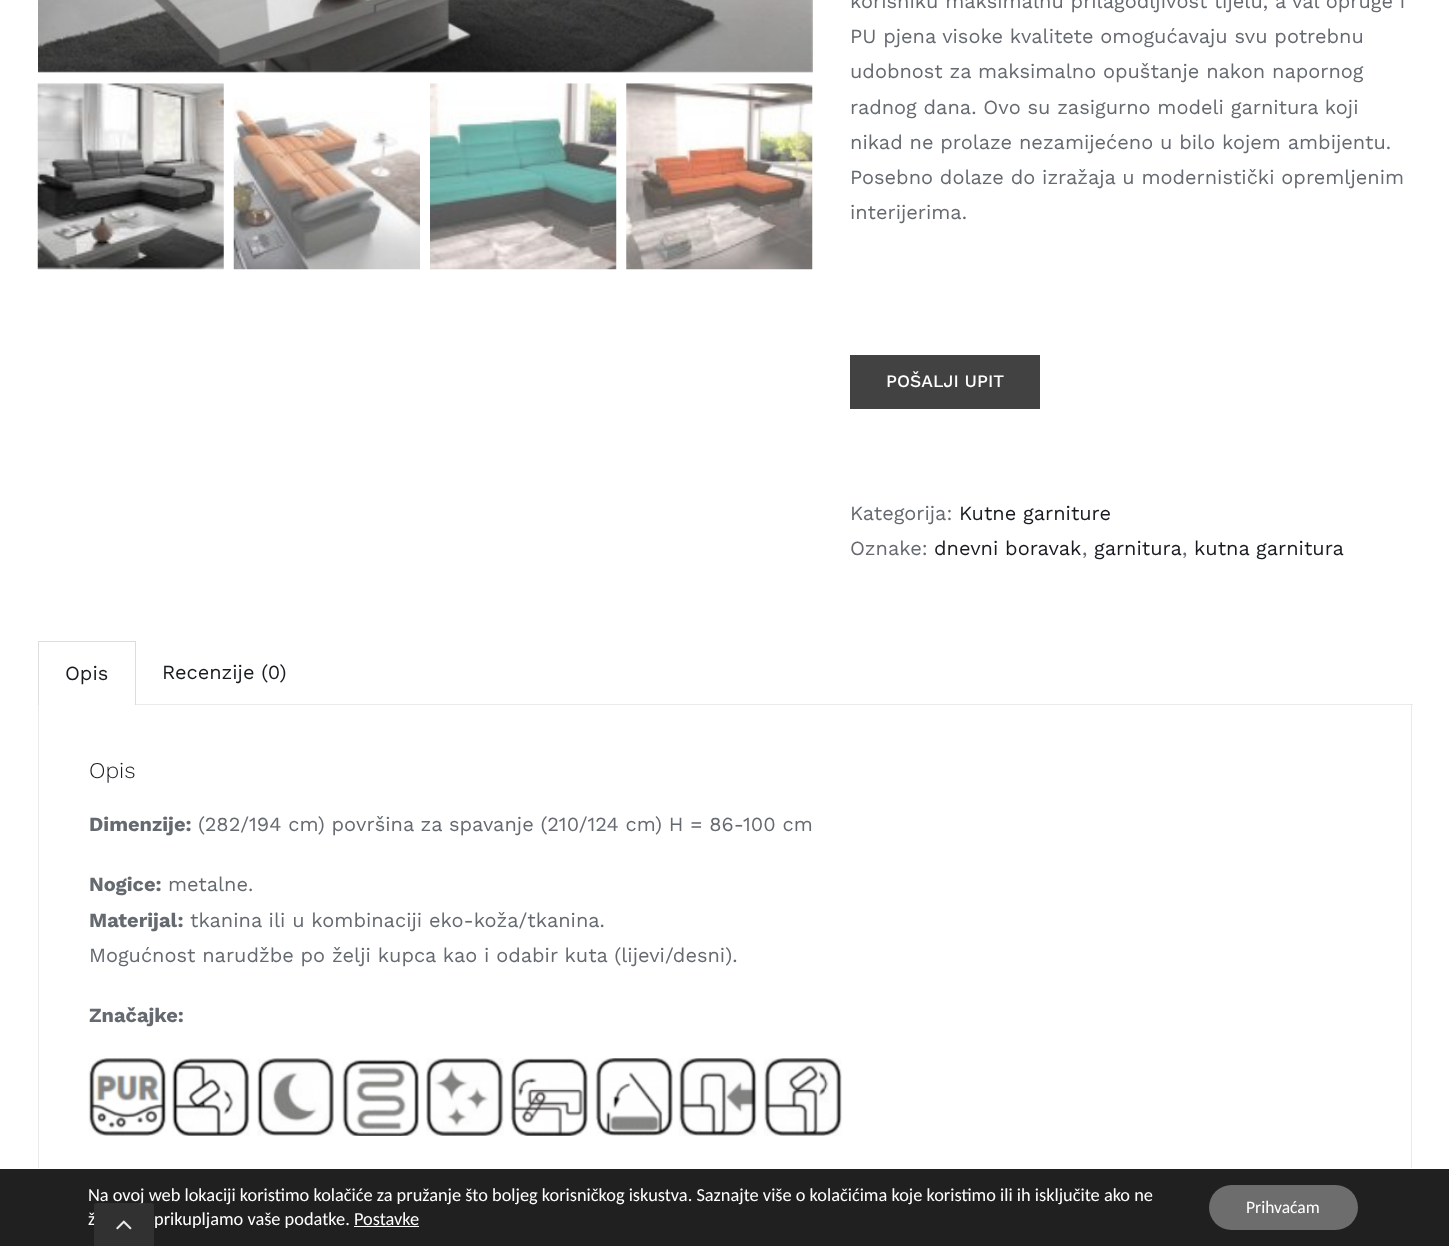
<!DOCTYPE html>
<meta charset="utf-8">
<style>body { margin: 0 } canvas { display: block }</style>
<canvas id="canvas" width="1449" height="1246"></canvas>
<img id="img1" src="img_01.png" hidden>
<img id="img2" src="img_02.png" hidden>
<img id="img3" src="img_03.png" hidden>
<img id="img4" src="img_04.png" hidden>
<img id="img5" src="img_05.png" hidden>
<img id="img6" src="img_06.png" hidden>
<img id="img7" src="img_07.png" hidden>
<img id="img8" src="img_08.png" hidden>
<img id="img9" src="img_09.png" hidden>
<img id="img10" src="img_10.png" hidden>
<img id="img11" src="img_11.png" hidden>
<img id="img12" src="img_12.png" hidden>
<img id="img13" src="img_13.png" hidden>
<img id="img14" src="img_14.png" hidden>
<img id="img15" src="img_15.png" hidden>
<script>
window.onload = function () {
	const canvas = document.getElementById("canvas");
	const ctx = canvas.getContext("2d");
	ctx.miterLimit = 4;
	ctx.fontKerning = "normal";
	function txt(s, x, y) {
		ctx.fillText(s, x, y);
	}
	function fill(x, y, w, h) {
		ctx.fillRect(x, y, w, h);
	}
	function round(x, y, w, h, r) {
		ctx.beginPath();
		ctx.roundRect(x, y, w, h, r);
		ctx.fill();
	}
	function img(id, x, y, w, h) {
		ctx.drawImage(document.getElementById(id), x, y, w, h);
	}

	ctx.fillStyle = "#FFFFFF";
	fill(0, 0, 1449, 1246);
	img("img1", 38, 0, 775, 73);
	img("img2", 37, 83, 187, 187);
	img("img3", 233, 98, 187, 172);
	img("img4", 430, 83, 187, 187);
	img("img5", 626, 83, 187, 187);
	ctx.fillStyle = "#424242";
	fill(850, 355, 190, 54);
	ctx.fillStyle = "#EAEAEB";
	fill(136, 704, 1277, 1);
	ctx.fillStyle = "#DDDDDD";
	fill(38, 641, 98, 1);
	fill(135, 641, 1, 64);
	fill(38, 641, 1, 64);
	ctx.fillStyle = "#EAEAEB";
	ctx.beginPath();
	ctx.moveTo(1412, 705);
	ctx.lineTo(1412, 1212);
	ctx.lineTo(1411, 1211);
	ctx.lineTo(1411, 705);
	ctx.closePath();
	ctx.fill();
	ctx.fillStyle = "rgba(40, 45, 51, 0.1)";
	ctx.beginPath();
	ctx.moveTo(38, 1212);
	ctx.lineTo(38, 705);
	ctx.lineTo(39, 705);
	ctx.lineTo(39, 1211);
	ctx.closePath();
	ctx.fill();
	img("img6", 88, 1058, 79, 78);
	img("img7", 172, 1058, 78, 78);
	img("img8", 257, 1058, 77, 78);
	img("img9", 342, 1059, 77, 77);
	img("img10", 426, 1058, 78, 78);
	img("img11", 510, 1058, 78, 78);
	img("img12", 595, 1058, 78, 78);
	img("img13", 678, 1058, 79, 78);
	img("img14", 764, 1058, 78, 78);
	ctx.fillStyle = "#202020";
	fill(0, 1169, 1449, 77);
	ctx.fillStyle = "#FFFFFF";
	fill(38, 1168, 1374, 1);
	fill(354, 1226, 65, 1);
	ctx.fillStyle = "#6D6D6D";
	round(1209, 1185, 149, 45, 22.5);
	ctx.font = "20px Work Sans";
	ctx.fillStyle = "#656A70";
	txt("korisniku maksimalnu prilagodljivost tijelu, a val opruge i", 850, 8);
	txt("PU pjena visoke kvalitete omogućavaju svu potrebnu", 850, 43);
	txt("udobnost za maksimalno opuštanje nakon napornog", 850, 78);
	txt("radnog dana. Ovo su zasigurno modeli garnitura koji", 850, 114);
	txt("nikad ne prolaze nezamijećeno u bilo kojem ambijentu.", 850, 149);
	txt("Posebno dolaze do izražaja u modernistički opremljenim", 850, 184);
	txt("interijerima.", 850, 219);
	ctx.font = "500 17.5px Work Sans";
	ctx.fillStyle = "#FFFFFF";
	txt("POŠALJI UPIT", 886, 387);
	ctx.font = "20px Work Sans";
	ctx.fillStyle = "#656A70";
	txt("Kategorija:", 850, 520);
	ctx.fillStyle = "#181B20";
	txt("Kutne garniture", 959, 520);
	ctx.fillStyle = "#656A70";
	txt("Oznake:", 850, 555);
	ctx.fillStyle = "#181B20";
	txt("dnevni boravak", 934, 555);
	ctx.fillStyle = "#656A70";
	txt(",", 1082, 555);
	ctx.fillStyle = "#181B20";
	txt("garnitura", 1094, 555);
	ctx.fillStyle = "#656A70";
	txt(",", 1182, 555);
	ctx.fillStyle = "#181B20";
	txt("kutna garnitura", 1194, 555);
	txt("Opis", 65, 680);
	txt("Recenzije (0)", 162, 679);
	ctx.font = "300 22.5px Work Sans";
	txt("Opis", 89, 778);
	ctx.font = "bold 20px Work Sans";
	ctx.fillStyle = "#656A70";
	txt("Dimenzije:", 89, 831);
	ctx.font = "20px Work Sans";
	txt("(282/194 cm) površina za spavanje (210/124 cm) H = 86-100 cm", 198, 831);
	ctx.font = "bold 20px Work Sans";
	txt("Nogice:", 89, 891);
	ctx.font = "20px Work Sans";
	txt("metalne.", 168, 891);
	ctx.font = "bold 20px Work Sans";
	txt("Materijal:", 89, 927);
	ctx.font = "20px Work Sans";
	txt("tkanina ili u kombinaciji eko-koža/tkanina.", 190, 927);
	txt("Mogućnost narudžbe po želji kupca kao i odabir kuta (lijevi/desni).", 89, 962);
	ctx.font = "bold 20px Work Sans";
	txt("Značajke:", 89, 1022);
	ctx.font = "18.33px Carlito";
	ctx.fillStyle = "#FFFFFF";
	txt("Na ovoj web lokaciji koristimo kolačiće za pružanje što boljeg korisničkog iskustva. Saznajte više o kolačićima koje koristimo ili ih isključite ako ne", 88, 1201);
	txt("ž", 88, 1225);
	txt("prikupljamo vaše podatke. Postavke", 154, 1225);
	ctx.font = "17.5px Carlito";
	txt("Prihvaćam", 1246, 1213);
	ctx.fillStyle = "rgba(51, 51, 51, 0.9)";
	ctx.beginPath();
	ctx.roundRect(94, 1203, 60, 43, [2.5, 2.5, 0, 0]);
	ctx.fill();
	img("img15", 116, 1220, 16, 10);
};
</script>
